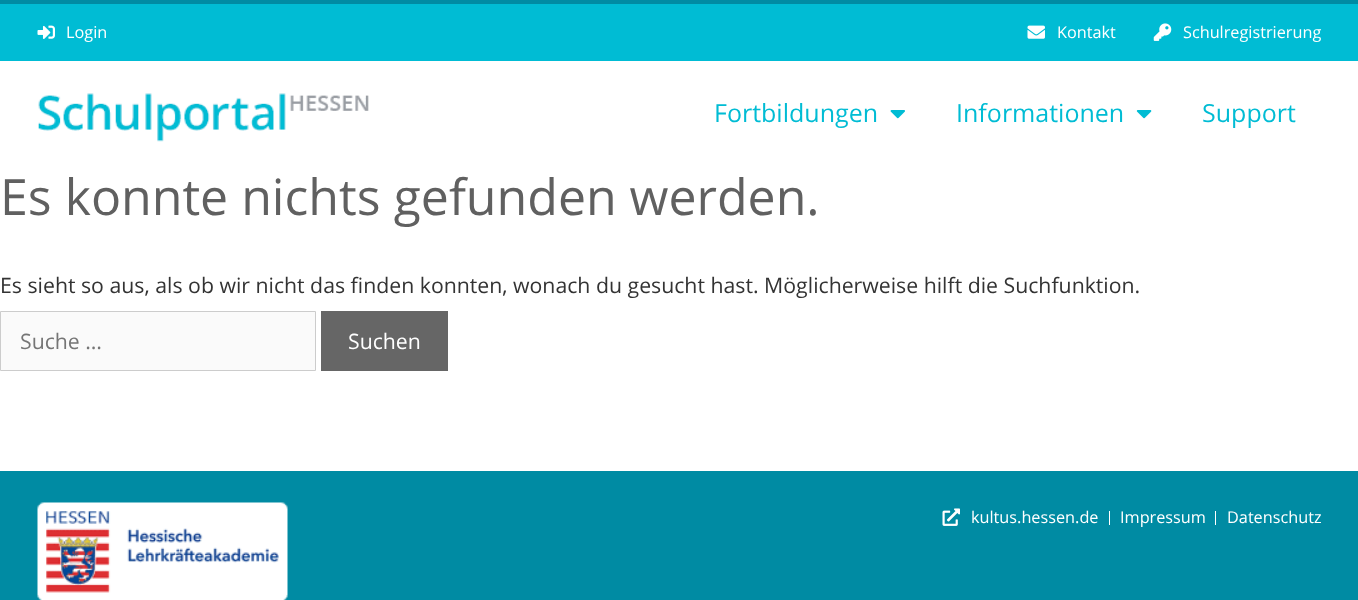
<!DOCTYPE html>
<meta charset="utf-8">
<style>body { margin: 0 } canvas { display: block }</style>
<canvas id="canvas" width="1358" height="600"></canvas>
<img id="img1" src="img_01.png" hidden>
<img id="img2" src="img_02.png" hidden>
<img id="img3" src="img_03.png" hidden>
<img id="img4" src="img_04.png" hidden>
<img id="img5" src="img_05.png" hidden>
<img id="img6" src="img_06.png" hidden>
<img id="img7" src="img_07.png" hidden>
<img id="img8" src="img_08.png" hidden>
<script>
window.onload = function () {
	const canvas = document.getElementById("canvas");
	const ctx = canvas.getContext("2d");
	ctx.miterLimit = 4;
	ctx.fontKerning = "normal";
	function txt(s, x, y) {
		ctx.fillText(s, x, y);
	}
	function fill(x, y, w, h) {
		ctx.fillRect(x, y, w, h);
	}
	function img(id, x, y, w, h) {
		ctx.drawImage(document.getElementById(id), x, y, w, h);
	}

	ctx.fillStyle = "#FFFFFF";
	fill(0, 0, 1358, 600);
	ctx.fillStyle = "#00BCD4";
	fill(0, 4, 1358, 57);
	ctx.fillStyle = "#008BA3";
	fill(0, 0, 1358, 4);
	img("img1", 37, 25, 18, 14);
	img("img2", 1027, 25, 18, 14);
	img("img3", 1153, 23, 19, 18);
	img("img4", 38, 93, 331, 49);
	img("img5", 890, 110, 15, 9);
	img("img6", 1136, 110, 16, 9);
	ctx.fillStyle = "#FAFAFA";
	ctx.beginPath();
	ctx.rect(0.5, 311.5, 315, 59);
	ctx.fill();
	ctx.strokeStyle = "#CCCCCC";
	ctx.stroke();
	ctx.fillStyle = "#666666";
	fill(321, 311, 127, 60);
	ctx.fillStyle = "#008BA3";
	fill(0, 471, 1358, 129);
	img("img7", 37, 502, 251, 98);
	img("img8", 942, 508, 18, 18);
	ctx.fillStyle = "#FFFFFF";
	fill(1109, 511, 1, 14);
	fill(1215, 511, 1, 14);
	ctx.font = "16.25px Open Sans";
	txt("Login", 66, 38);
	txt("Kontakt", 1057, 38);
	txt("Schulregistrierung", 1183, 38);
	ctx.font = "25px Open Sans";
	ctx.fillStyle = "#00BCD4";
	txt("Fortbildungen", 714, 122);
	txt("Informationen", 956, 122);
	txt("Support", 1202, 122);
	ctx.font = "50px Open Sans";
	ctx.fillStyle = "#606060";
	txt("Es konnte nichts gefunden werden.", 0, 215);
	ctx.font = "21.25px Open Sans";
	ctx.fillStyle = "#333333";
	txt("Es sieht so aus, als ob wir nicht das finden konnten, wonach du gesucht hast. Möglicherweise hilft die Suchfunktion.", 0, 293);
	ctx.fillStyle = "#757575";
	txt("Suche …", 20, 349);
	ctx.fillStyle = "#FFFFFF";
	txt("Suchen", 348, 349);
	ctx.font = "16.25px Open Sans";
	txt("kultus.hessen.de", 971, 523);
	txt("Impressum", 1120, 523);
	txt("Datenschutz", 1227, 523);
};
</script>
